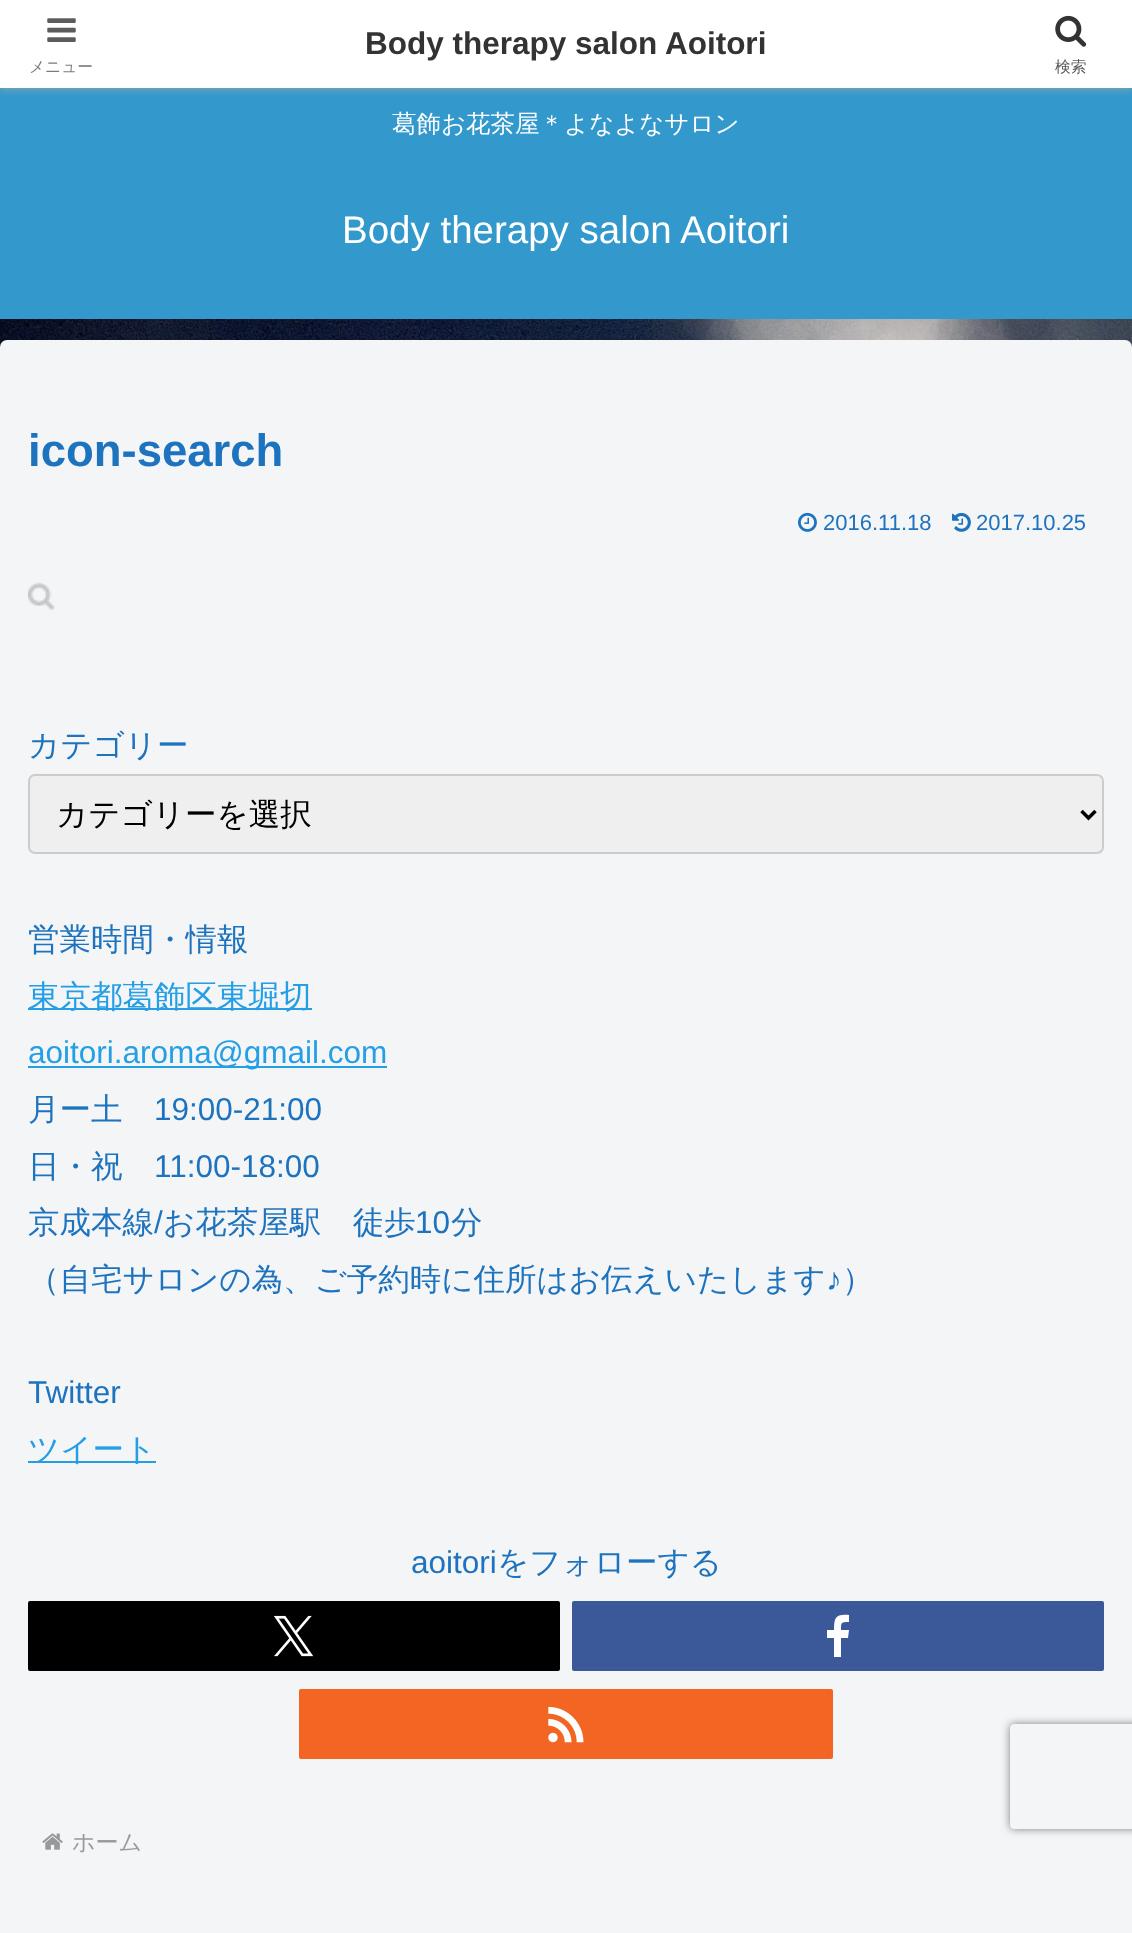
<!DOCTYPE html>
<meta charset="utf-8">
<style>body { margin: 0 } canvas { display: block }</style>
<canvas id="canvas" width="1132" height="1933"></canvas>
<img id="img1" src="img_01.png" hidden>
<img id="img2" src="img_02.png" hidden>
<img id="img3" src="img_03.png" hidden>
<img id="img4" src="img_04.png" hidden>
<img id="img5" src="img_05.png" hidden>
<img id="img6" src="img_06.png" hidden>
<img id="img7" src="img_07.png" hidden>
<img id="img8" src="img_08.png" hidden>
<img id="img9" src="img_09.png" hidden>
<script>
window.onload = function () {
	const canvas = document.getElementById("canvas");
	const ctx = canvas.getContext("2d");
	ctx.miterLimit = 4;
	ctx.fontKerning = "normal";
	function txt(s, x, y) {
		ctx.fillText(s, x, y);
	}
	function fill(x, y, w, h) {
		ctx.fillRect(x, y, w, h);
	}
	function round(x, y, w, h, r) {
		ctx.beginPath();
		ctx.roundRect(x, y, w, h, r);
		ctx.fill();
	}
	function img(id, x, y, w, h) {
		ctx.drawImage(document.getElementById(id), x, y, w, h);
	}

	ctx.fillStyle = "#FFFFFF";
	fill(0, 0, 1132, 1933);
	img("img1", 0, 319, 1132, 28);
	ctx.fillStyle = "#3399CC";
	fill(0, 88, 1132, 231);
	ctx.fillStyle = "#A9A9A9";
	ctx.filter = "blur(4.5px)";
	ctx.beginPath();
	ctx.rect(0, 0, 1132, 88);
	ctx.fill();
	ctx.filter = "none";
	ctx.fillStyle = "#FFFFFF";
	fill(0, 0, 1132, 88);
	img("img2", 47, 18, 29, 24);
	img("img3", 1055, 15, 32, 32);
	ctx.fillStyle = "#F4F5F7";
	round(0, 340, 1132, 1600, 7);
	img("img4", 798, 512, 19, 20);
	img("img5", 952, 512, 19, 20);
	img("img6", 28, 582, 27, 29);
	ctx.fillStyle = "#EFEFEF";
	ctx.beginPath();
	ctx.roundRect(29, 775, 1074, 78, 6);
	ctx.fill();
	ctx.strokeStyle = "#CCCCCC";
	ctx.lineWidth = 2;
	ctx.stroke();
	ctx.beginPath();
	ctx.moveTo(1081.5, 811);
	ctx.lineTo(1088.5, 818);
	ctx.lineTo(1095.5, 811);
	ctx.strokeStyle = "#000000";
	ctx.lineWidth = 3.5;
	ctx.stroke();
	ctx.fillStyle = "#249EE5";
	fill(28, 1008, 284, 2);
	fill(28, 1066, 359, 2);
	fill(28, 1461, 128, 2);
	ctx.fillStyle = "#000000";
	round(28, 1601, 532, 70, 2);
	img("img7", 274, 1615, 40, 42);
	ctx.fillStyle = "#3B5998";
	round(572, 1601, 532, 70, 2);
	ctx.fillStyle = "#FFFFFF";
	ctx.beginPath();
	ctx.moveTo(841, 1657);
	ctx.lineTo(841, 1638);
	ctx.lineTo(848, 1638);
	ctx.lineTo(849, 1630);
	ctx.lineTo(841, 1630);
	ctx.bezierCurveTo(841, 1622, 841, 1622, 849, 1622);
	ctx.lineTo(849, 1615);
	ctx.bezierCurveTo(836, 1614, 834, 1617, 834, 1630);
	ctx.lineTo(827, 1630);
	ctx.lineTo(827, 1638);
	ctx.lineTo(834, 1638);
	ctx.lineTo(834, 1657);
	ctx.closePath();
	ctx.fill();
	ctx.fillStyle = "#F26522";
	round(299, 1689, 534, 70, 2);
	img("img8", 548, 1706, 36, 37);
	img("img9", 42, 1833, 21, 17);
	ctx.save();
	ctx.beginPath();
	ctx.moveTo(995, 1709);
	ctx.lineTo(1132, 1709);
	ctx.lineTo(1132, 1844);
	ctx.lineTo(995, 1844);
	ctx.closePath();
	ctx.moveTo(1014, 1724);
	ctx.lineTo(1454, 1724);
	ctx.bezierCurveTo(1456, 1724, 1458, 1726, 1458, 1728);
	ctx.lineTo(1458, 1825);
	ctx.bezierCurveTo(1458, 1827, 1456, 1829, 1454, 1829);
	ctx.lineTo(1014, 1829);
	ctx.bezierCurveTo(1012, 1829, 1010, 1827, 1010, 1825);
	ctx.lineTo(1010, 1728);
	ctx.bezierCurveTo(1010, 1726, 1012, 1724, 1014, 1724);
	ctx.closePath();
	ctx.clip("evenodd");
	ctx.fillStyle = "#808080";
	ctx.filter = "blur(4.5px)";
	ctx.beginPath();
	ctx.roundRect(1010, 1724, 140, 105, 4);
	ctx.fill();
	ctx.filter = "none";
	ctx.restore();
	ctx.font = "bold 31.5px Liberation Sans";
	ctx.fillStyle = "#333333";
	txt("Body therapy salon Aoitori", 365, 54);
	ctx.font = "500 15.75px WenQuanYi Zen Hei";
	ctx.fillStyle = "#7C7C7C";
	txt("メニュー", 29, 72);
	ctx.fillStyle = "#5C5C5C";
	txt("検索", 1055, 72);
	ctx.font = "500 24.5px WenQuanYi Zen Hei";
	ctx.fillStyle = "#FFFFFF";
	txt("葛飾お花茶屋＊よなよなサロン", 392, 132);
	ctx.font = "38.5px Liberation Sans";
	txt("Body therapy salon Aoitori", 342, 243);
	ctx.font = "bold 45.5px Liberation Sans";
	ctx.fillStyle = "#1E73BE";
	txt("icon-search", 28, 466);
	ctx.font = "22px Liberation Sans";
	txt("2016.11.18", 823, 530);
	txt("2017.10.25", 976, 530);
	ctx.font = "500 31.5px WenQuanYi Zen Hei";
	txt("カテゴリー", 28, 756);
	ctx.fillStyle = "#000000";
	txt("カテゴリーを選択", 56, 825);
	ctx.fillStyle = "#1E73BE";
	txt("営業時間・情報", 28, 950);
	ctx.fillStyle = "#249EE5";
	txt("東京都葛飾区東堀切", 28, 1007);
	ctx.font = "31.5px Liberation Sans";
	txt("aoitori.aroma@gmail.com", 28, 1063);
	ctx.font = "500 31.5px WenQuanYi Zen Hei";
	ctx.fillStyle = "#1E73BE";
	txt("月ー土", 28, 1120);
	ctx.font = "31.5px Liberation Sans";
	txt("19:00-21:00", 154, 1120);
	ctx.font = "500 31.5px WenQuanYi Zen Hei";
	txt("日・祝", 28, 1177);
	ctx.font = "31.5px Liberation Sans";
	txt("11:00-18:00", 154, 1177);
	ctx.font = "500 31.5px WenQuanYi Zen Hei";
	txt("京成本線", 28, 1233);
	ctx.font = "31.5px Liberation Sans";
	txt("/", 154, 1233);
	ctx.font = "500 31.5px WenQuanYi Zen Hei";
	txt("お花茶屋駅　徒歩", 163, 1233);
	ctx.font = "31.5px Liberation Sans";
	txt("10", 415, 1233);
	ctx.font = "500 31.5px WenQuanYi Zen Hei";
	txt("分", 451, 1233);
	txt("（自宅サロンの為、ご予約時に住所はお伝えいたします", 28, 1290);
	ctx.font = "31.5px Liberation Sans";
	txt("♪", 826, 1290);
	ctx.font = "500 31.5px WenQuanYi Zen Hei";
	txt("）", 842, 1290);
	ctx.font = "31.5px Liberation Sans";
	txt("Twitter", 28, 1403);
	ctx.font = "500 31.5px WenQuanYi Zen Hei";
	ctx.fillStyle = "#249EE5";
	txt("ツイート", 28, 1460);
	ctx.font = "31.5px Liberation Sans";
	ctx.fillStyle = "#1E73BE";
	txt("aoitori", 411, 1573);
	ctx.font = "500 31.5px WenQuanYi Zen Hei";
	txt("をフォローする", 497, 1573);
	ctx.font = "500 23px WenQuanYi Zen Hei";
	ctx.fillStyle = "#999999";
	txt("ホーム", 72, 1850);
};
</script>
